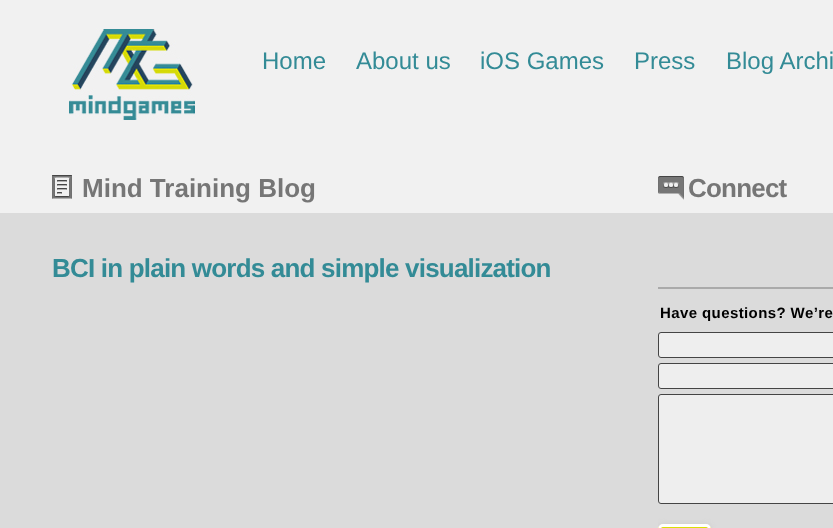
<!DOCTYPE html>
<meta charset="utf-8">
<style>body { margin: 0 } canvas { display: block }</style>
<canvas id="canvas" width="833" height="528"></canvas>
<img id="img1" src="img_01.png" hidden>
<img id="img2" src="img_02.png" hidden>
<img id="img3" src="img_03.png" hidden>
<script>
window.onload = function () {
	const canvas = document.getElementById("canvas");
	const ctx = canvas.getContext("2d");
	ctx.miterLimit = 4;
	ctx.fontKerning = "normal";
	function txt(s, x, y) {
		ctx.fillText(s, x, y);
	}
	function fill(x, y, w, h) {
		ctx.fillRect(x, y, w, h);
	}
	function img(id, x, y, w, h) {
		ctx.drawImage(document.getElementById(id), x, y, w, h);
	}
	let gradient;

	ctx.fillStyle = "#F1F1F1";
	fill(0, 0, 833, 528);
	ctx.fillStyle = "#DBDBDB";
	fill(0, 213, 833, 315);
	img("img1", 69, 28, 126, 92);
	img("img2", 52, 175, 20, 24);
	img("img3", 658, 176, 26, 24);
	ctx.fillStyle = "#AAAAAA";
	fill(658, 287, 175, 2);
	ctx.fillStyle = "#EEEEEE";
	ctx.beginPath();
	ctx.roundRect(658.5, 332.5, 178, 25, 2.5);
	ctx.fill();
	ctx.strokeStyle = "#444444";
	ctx.stroke();
	ctx.beginPath();
	ctx.roundRect(658.5, 363.5, 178, 25, 2.5);
	ctx.fill();
	ctx.stroke();
	ctx.beginPath();
	ctx.roundRect(658.5, 394.5, 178, 109, 2.5);
	ctx.fill();
	ctx.stroke();
	ctx.save();
	ctx.beginPath();
	ctx.rect(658, 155, 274, 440);
	ctx.clip();
	ctx.fillStyle = "#CCCCCC";
	ctx.filter = "blur(2.5px)";
	ctx.beginPath();
	ctx.roundRect(658, 524, 53, 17, 5);
	ctx.fill();
	ctx.filter = "none";
	ctx.restore();
	gradient = ctx.createLinearGradient(685, 527, 685, 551);
	gradient.addColorStop(0, "#DCE005");
	gradient.addColorStop(1, "#B5B90C");
	ctx.fillStyle = gradient;
	fill(658, 527, 53, 1);
	ctx.beginPath();
	ctx.roundRect(659.5, 525.5, 50, 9, 3.5);
	ctx.strokeStyle = "#FFFFFF";
	ctx.lineWidth = 3;
	ctx.stroke();
	ctx.font = "24px Liberation Sans";
	ctx.fillStyle = "#338B96";
	txt("Home", 262, 69);
	txt("About us", 356, 69);
	txt("iOS Games", 480, 69);
	txt("Press", 634, 69);
	txt("Blog Archi", 726, 69);
	ctx.font = "bold 26px Liberation Sans";
	ctx.fillStyle = "#767676";
	txt("Mind Training Blog", 82, 197);
	ctx.letterSpacing = "-0.8px";
	ctx.fillStyle = "#338B96";
	txt("BCI in plain words and simple visualization", 52, 277);
	ctx.fillStyle = "#767676";
	txt("Connect", 688, 197);
	ctx.letterSpacing = "0.4px";
	ctx.font = "bold 15px Liberation Sans";
	ctx.fillStyle = "#000000";
	txt("Have questions? We’re", 660, 318);
};
</script>
